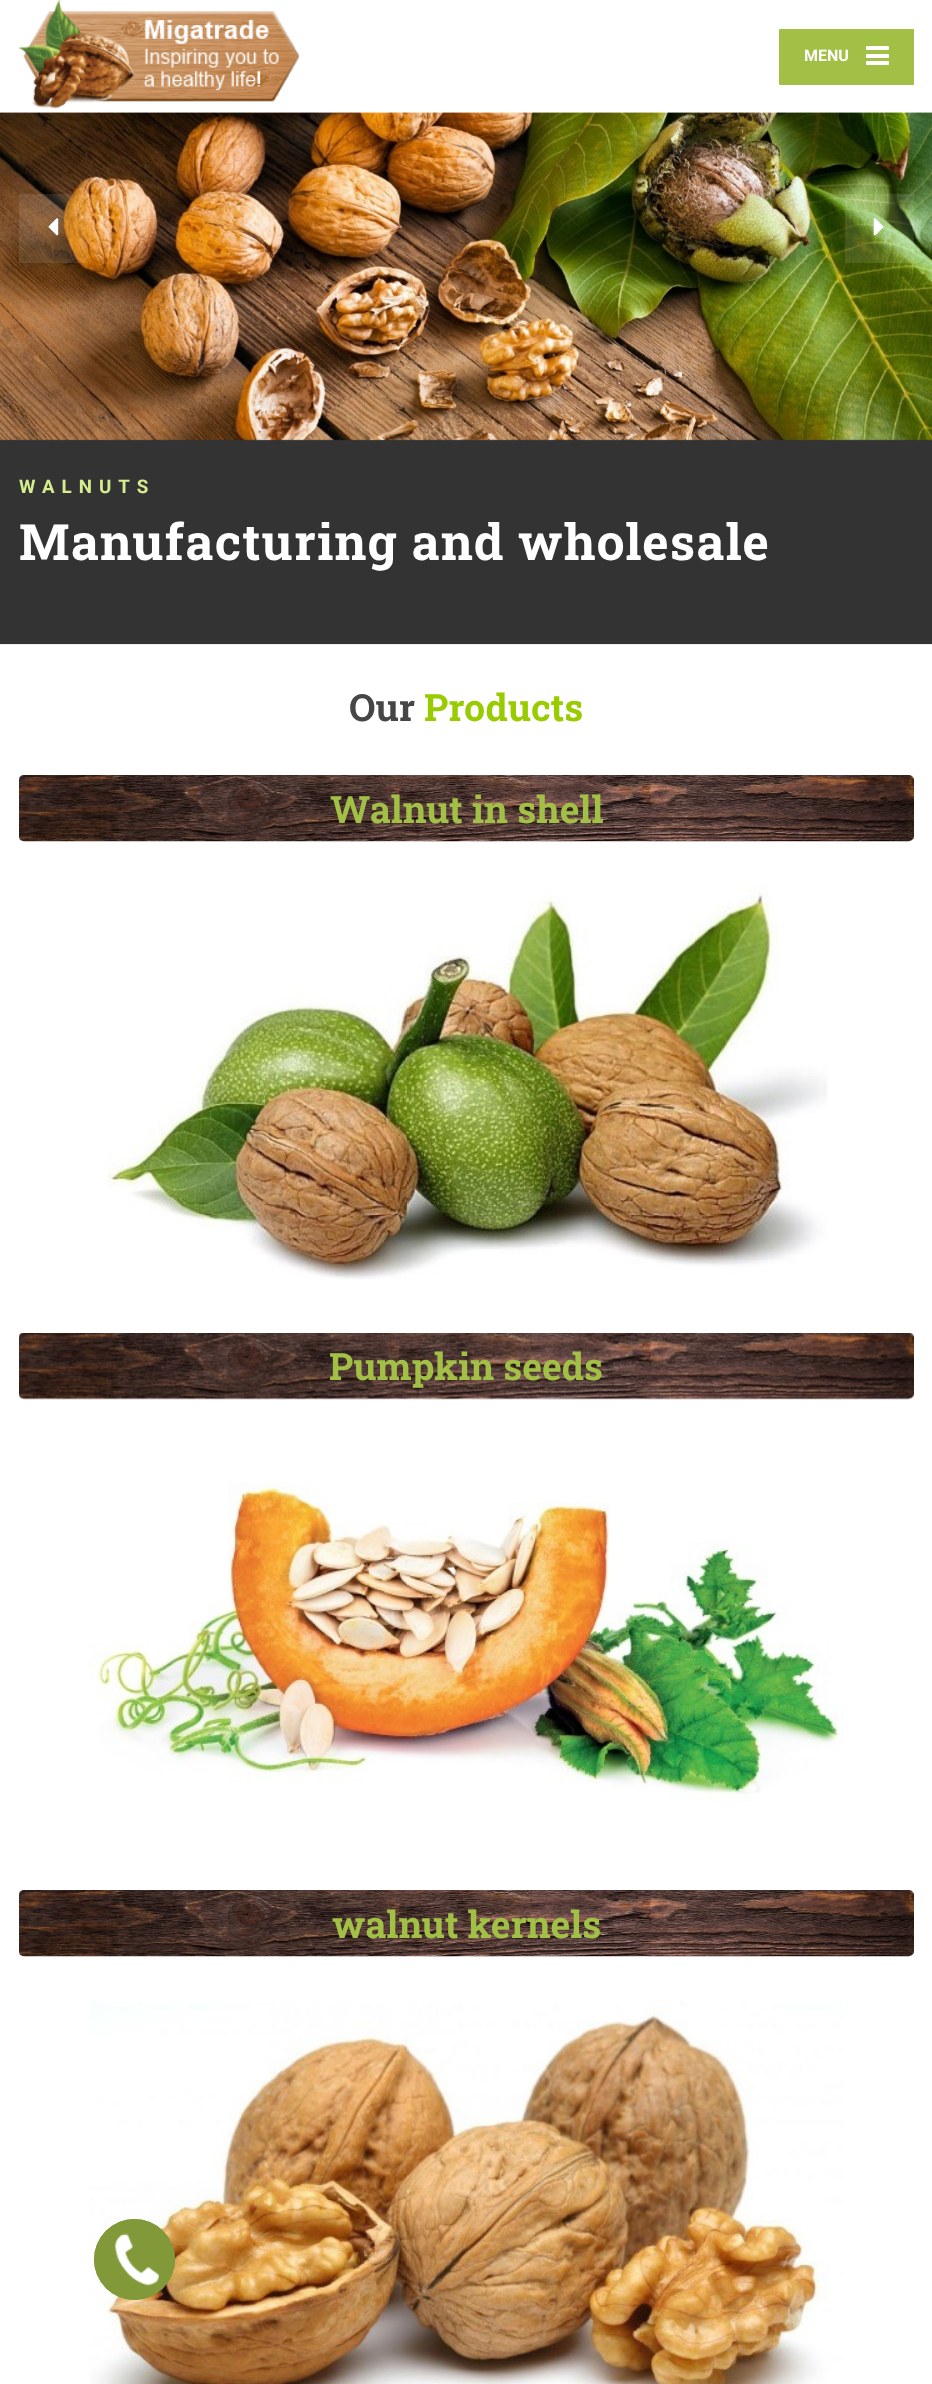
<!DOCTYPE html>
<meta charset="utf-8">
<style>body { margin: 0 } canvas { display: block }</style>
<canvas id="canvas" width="932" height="2384"></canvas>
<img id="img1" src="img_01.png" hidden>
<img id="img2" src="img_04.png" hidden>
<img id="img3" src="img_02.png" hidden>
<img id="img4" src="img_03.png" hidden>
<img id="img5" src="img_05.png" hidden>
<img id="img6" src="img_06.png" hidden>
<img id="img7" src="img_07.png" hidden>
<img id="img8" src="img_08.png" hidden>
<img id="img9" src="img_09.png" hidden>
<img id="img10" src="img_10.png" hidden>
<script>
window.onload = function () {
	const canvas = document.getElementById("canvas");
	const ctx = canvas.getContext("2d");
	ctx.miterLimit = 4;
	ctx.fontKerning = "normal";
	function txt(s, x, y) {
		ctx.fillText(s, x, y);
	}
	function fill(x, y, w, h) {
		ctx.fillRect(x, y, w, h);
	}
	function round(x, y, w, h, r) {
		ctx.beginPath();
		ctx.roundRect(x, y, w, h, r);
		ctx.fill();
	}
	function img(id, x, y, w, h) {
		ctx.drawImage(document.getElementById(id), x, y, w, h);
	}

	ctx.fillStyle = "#FFFFFF";
	fill(0, 0, 932, 2384);
	img("img1", 18, 0, 281, 109);
	ctx.fillStyle = "#A2C046";
	round(779, 29, 135, 56, 1);
	ctx.fillStyle = "#FFFFFF";
	round(866, 46, 23, 4, 1);
	round(866, 54, 23, 4, 1);
	round(866, 61, 23, 4, 1);
	ctx.fillStyle = "#EEEEEE";
	fill(0, 644, 932, 1);
	ctx.fillStyle = "#333333";
	fill(0, 439, 932, 205);
	img("img2", 0, 112, 932, 329);
	ctx.fillStyle = "rgba(255, 255, 255, 0.1)";
	fill(19, 194, 69, 69);
	img("img3", 48, 218, 11, 18);
	fill(845, 194, 69, 69);
	img("img4", 873, 218, 11, 18);
	img("img5", 19, 775, 895, 67);
	img("img6", 107, 885, 721, 395);
	img("img7", 19, 1333, 895, 67);
	img("img8", 89, 1482, 755, 320);
	img("img5", 19, 1890, 895, 67);
	img("img9", 89, 2000, 755, 384);
	ctx.beginPath();
	ctx.arc(134.5, 2259.5, 40, 0, Math.PI * 2);
	ctx.strokeStyle = "#819938";
	ctx.stroke();
	ctx.fillStyle = "#819938";
	ctx.beginPath();
	ctx.arc(134.5, 2259.5, 40.5, 0, Math.PI * 2);
	ctx.fill();
	img("img10", 114, 2233, 45, 53);
	ctx.font = "bold 16px Roboto";
	ctx.fillStyle = "#FFFFFF";
	txt("MENU", 804, 61);
	ctx.letterSpacing = "7px";
	ctx.font = "bold 18.75px Roboto";
	ctx.fillStyle = "#D6ED8D";
	txt("WALNUTS", 19, 493);
	ctx.letterSpacing = "1.25px";
	ctx.font = "bold 50px Roboto Slab";
	ctx.fillStyle = "#FFFFFF";
	txt("Manufacturing and wholesale", 19, 560);
	ctx.letterSpacing = "0px";
	ctx.font = "bold 37.5px Roboto Slab";
	ctx.fillStyle = "#464646";
	txt("Our", 349, 721);
	ctx.fillStyle = "#99CC00";
	txt("Products", 424, 721);
	ctx.fillStyle = "#A2C046";
	txt("Walnut in shell", 330, 823);
	txt("Pumpkin seeds", 329, 1380);
	txt("walnut kernels", 332, 1938);
};
</script>
